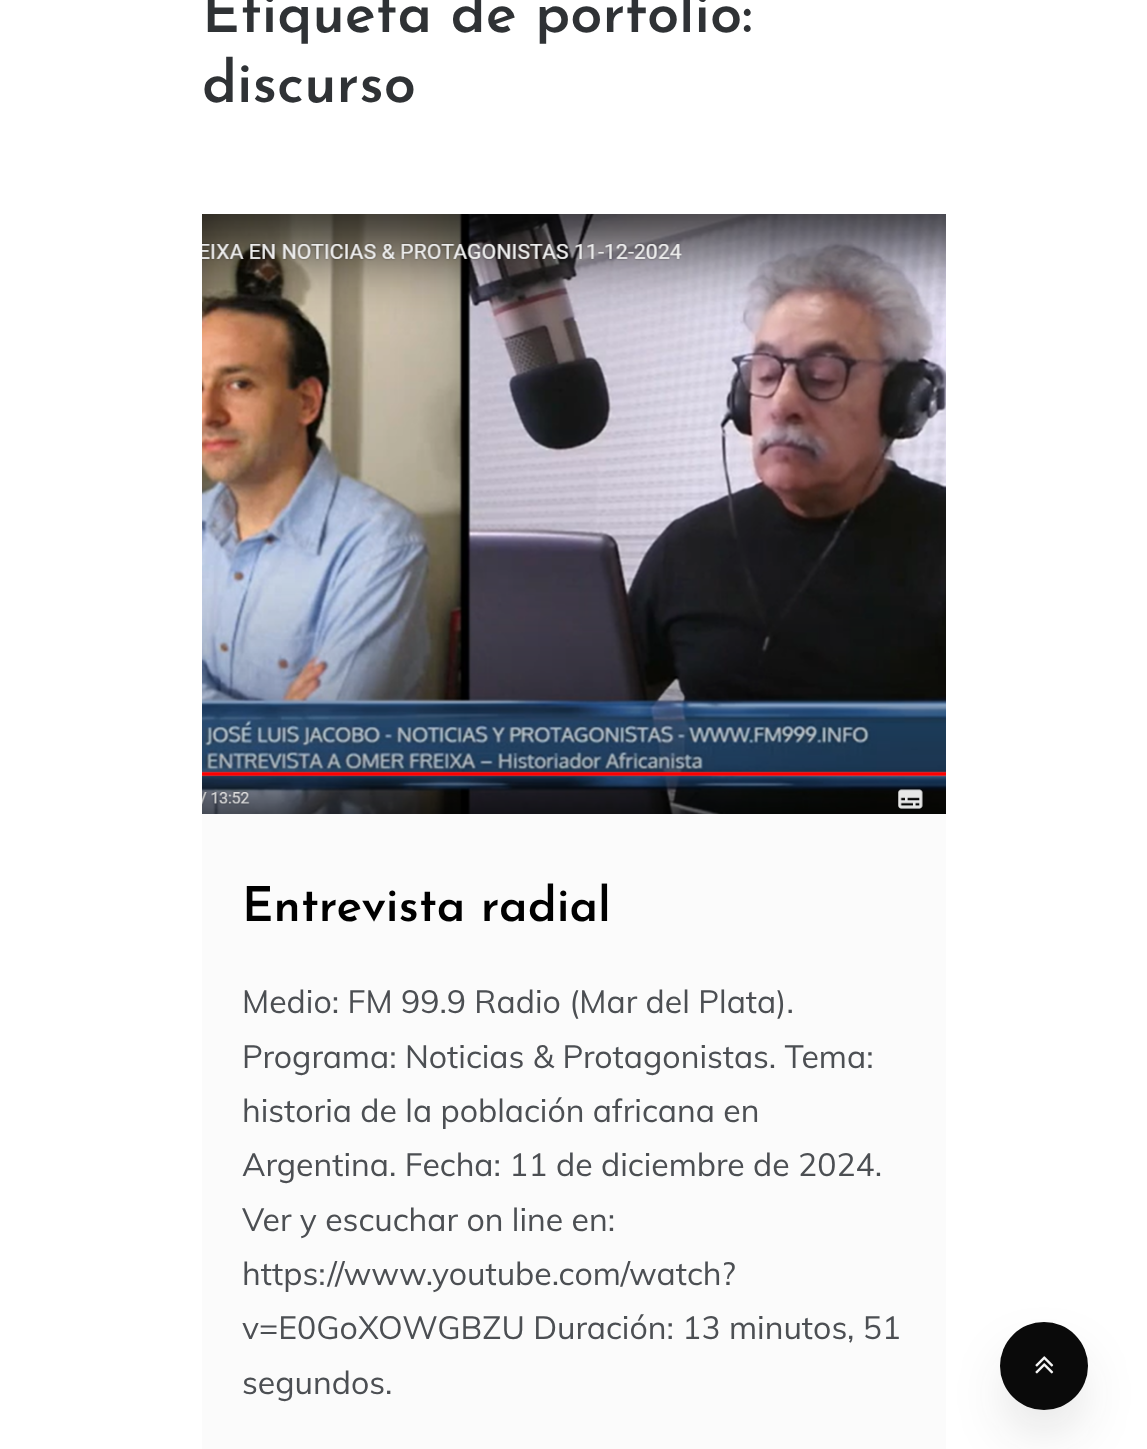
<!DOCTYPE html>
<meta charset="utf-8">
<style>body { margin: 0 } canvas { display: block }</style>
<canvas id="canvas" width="1147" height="1449"></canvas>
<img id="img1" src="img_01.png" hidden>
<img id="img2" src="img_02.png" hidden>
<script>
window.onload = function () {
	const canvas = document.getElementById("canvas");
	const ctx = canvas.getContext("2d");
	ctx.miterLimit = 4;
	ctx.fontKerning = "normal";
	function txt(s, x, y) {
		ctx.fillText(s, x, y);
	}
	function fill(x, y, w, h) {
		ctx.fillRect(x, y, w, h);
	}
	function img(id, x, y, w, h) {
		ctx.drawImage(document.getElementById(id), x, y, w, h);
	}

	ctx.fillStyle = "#FFFFFF";
	fill(0, 0, 1147, 1449);
	ctx.fillStyle = "#FBFBFB";
	fill(202, 814, 744, 635);
	img("img1", 202, 214, 744, 600);
	ctx.fillStyle = "rgba(24, 27, 30, 0.15)";
	ctx.filter = "blur(28px)";
	ctx.beginPath();
	ctx.roundRect(1008, 1358, 72, 72, 36);
	ctx.fill();
	ctx.filter = "none";
	ctx.fillStyle = "#0A0A0A";
	ctx.beginPath();
	ctx.arc(1044, 1366, 44, 0, Math.PI * 2);
	ctx.fill();
	img("img2", 1035, 1356, 19, 18);
	ctx.font = "600 58px Josefin Sans";
	ctx.fillStyle = "#2F3235";
	txt("Etiqueta de porfolio:", 202, 32);
	txt("discurso", 202, 102);
	ctx.font = "600 48px Josefin Sans";
	ctx.fillStyle = "#000000";
	txt("Entrevista radial", 242, 921);
	ctx.font = "32px Muli";
	ctx.fillStyle = "#4C4F53";
	txt("Medio: FM 99.9 Radio (Mar del Plata).", 242, 1013);
	txt("Programa: Noticias & Protagonistas. Tema:", 242, 1068);
	txt("historia de la población africana en", 242, 1122);
	txt("Argentina. Fecha: 11 de diciembre de 2024.", 242, 1176);
	txt("Ver y escuchar on line en:", 242, 1231);
	txt("https://www.youtube.com/watch?", 242, 1285);
	txt("v=E0GoXOWGBZU Duración: 13 minutos, 51", 242, 1339);
	txt("segundos.", 242, 1394);
};
</script>
